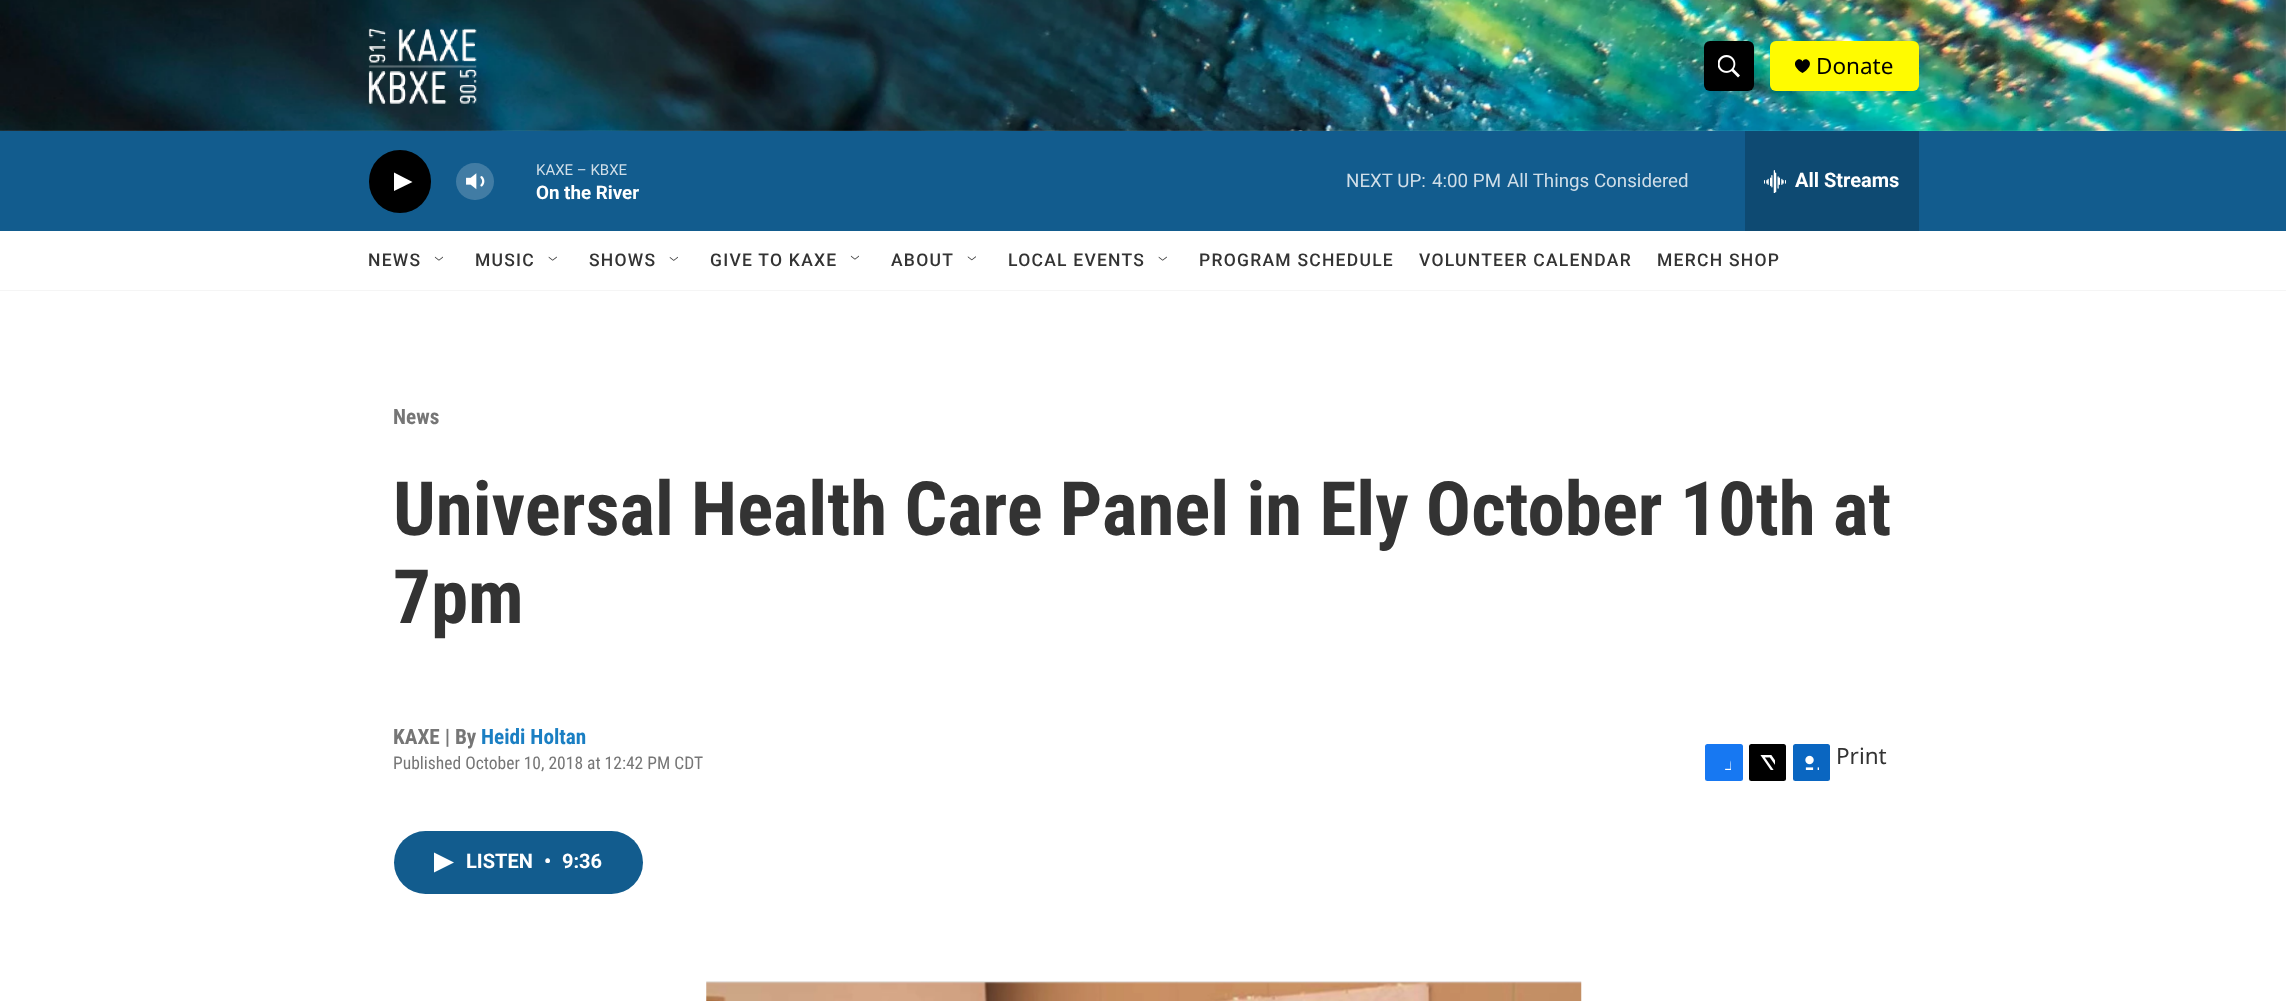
<!DOCTYPE html>
<meta charset="utf-8">
<style>body { margin: 0 } canvas { display: block }</style>
<canvas id="canvas" width="2286" height="1001"></canvas>
<img id="img1" src="img_01.png" hidden>
<img id="img2" src="img_02.png" hidden>
<img id="img3" src="img_03.png" hidden>
<img id="img4" src="img_04.png" hidden>
<img id="img5" src="img_05.png" hidden>
<img id="img6" src="img_06.png" hidden>
<img id="img7" src="img_07.png" hidden>
<img id="img8" src="img_08.png" hidden>
<img id="img9" src="img_09.png" hidden>
<img id="img10" src="img_10.png" hidden>
<img id="img11" src="img_11.png" hidden>
<img id="img12" src="img_12.png" hidden>
<img id="img13" src="img_13.png" hidden>
<img id="img14" src="img_14.png" hidden>
<script>
window.onload = function () {
	const canvas = document.getElementById("canvas");
	const ctx = canvas.getContext("2d");
	ctx.miterLimit = 4;
	ctx.fontKerning = "normal";
	function txt(s, x, y) {
		ctx.fillText(s, x, y);
	}
	function fill(x, y, w, h) {
		ctx.fillRect(x, y, w, h);
	}
	function round(x, y, w, h, r) {
		ctx.beginPath();
		ctx.roundRect(x, y, w, h, r);
		ctx.fill();
	}
	function img(id, x, y, w, h) {
		ctx.drawImage(document.getElementById(id), x, y, w, h);
	}

	ctx.fillStyle = "#FFFFFF";
	fill(0, 0, 2286, 1001);
	ctx.fillStyle = "#F5F5F5";
	fill(0, 290, 2286, 1);
	img("img1", 0, 0, 2286, 131);
	img("img2", 368, 28, 109, 76);
	ctx.fillStyle = "#000000";
	round(1704, 41, 50, 50, 6);
	img("img3", 1718, 55, 22, 23);
	ctx.fillStyle = "#FFFB00";
	round(1770, 41, 149, 50, 6);
	ctx.fillStyle = "#000000";
	ctx.beginPath();
	ctx.moveTo(1802.5, 61.5);
	ctx.bezierCurveTo(1800, 55, 1787, 63.5, 1802.5, 73);
	ctx.bezierCurveTo(1818, 63.5, 1805, 55, 1802.5, 61.5);
	ctx.closePath();
	ctx.fill();
	ctx.fillStyle = "#125C8E";
	fill(0, 131, 2286, 100);
	ctx.fillStyle = "#000000";
	round(369, 150, 62, 63, 31);
	ctx.fillStyle = "#FFFFFF";
	ctx.beginPath();
	ctx.moveTo(394, 172.5);
	ctx.lineTo(412.5, 182);
	ctx.lineTo(394, 191);
	ctx.closePath();
	ctx.fill();
	img("img4", 466, 173, 19, 17);
	ctx.fillStyle = "rgba(255, 255, 255, 0.2)";
	round(456, 163, 38, 37, 18.5);
	ctx.fillStyle = "#0E4A72";
	fill(1745, 131, 174, 100);
	img("img5", 1764, 170, 22, 23);
	img("img6", 434, 256, 9, 5);
	img("img7", 548, 256, 9, 5);
	img("img8", 669, 256, 9, 5);
	img("img9", 850, 255, 9, 5);
	img("img10", 967, 256, 9, 5);
	img("img7", 1158, 256, 9, 5);
	ctx.fillStyle = "#1778F2";
	round(1705, 744, 38, 37, 2.5);
	img("img11", 1725, 760, 6, 10);
	ctx.fillStyle = "#000000";
	round(1749, 744, 37, 37, 2.5);
	img("img12", 1760, 755, 15, 15);
	ctx.fillStyle = "#0A66C1";
	round(1793, 744, 37, 37, 2.5);
	img("img13", 1805, 755, 14, 15);
	ctx.fillStyle = "#125C8E";
	round(394, 831, 249, 63, 31.5);
	ctx.fillStyle = "#FFFFFF";
	ctx.beginPath();
	ctx.moveTo(434, 852.5);
	ctx.lineTo(454, 862.5);
	ctx.lineTo(434, 872.5);
	ctx.closePath();
	ctx.fill();
	img("img14", 706, 981, 876, 20);
	ctx.font = "22.5px Noto Sans";
	ctx.fillStyle = "#000000";
	txt("Donate", 1816, 74);
	ctx.font = "15px Roboto";
	ctx.fillStyle = "#D0DEE8";
	txt("KAXE – KBXE", 536, 175);
	ctx.font = "bold 18.75px Roboto";
	ctx.fillStyle = "#FFFFFF";
	txt("On the River", 536, 199);
	ctx.font = "18.75px Roboto";
	ctx.fillStyle = "#D0DEE8";
	txt("NEXT UP:", 1346, 187);
	txt("4:00 PM", 1432, 187);
	txt("All Things Considered", 1507, 187);
	ctx.font = "bold 20px Roboto";
	ctx.fillStyle = "#FFFFFF";
	txt("All Streams", 1795, 187);
	ctx.letterSpacing = "1.25px";
	ctx.font = "500 17.5px Roboto";
	ctx.fillStyle = "#333333";
	txt("NEWS", 368, 266);
	txt("MUSIC", 475, 266);
	txt("SHOWS", 589, 266);
	txt("GIVE TO KAXE", 710, 266);
	txt("ABOUT", 891, 266);
	txt("LOCAL EVENTS", 1008, 266);
	txt("PROGRAM SCHEDULE", 1199, 266);
	txt("VOLUNTEER CALENDAR", 1419, 266);
	txt("MERCH SHOP", 1657, 266);
	ctx.letterSpacing = "0px";
	ctx.font = "bold 21.25px Roboto Condensed";
	ctx.fillStyle = "#767676";
	txt("News", 393, 424);
	ctx.font = "bold 75px Roboto Condensed";
	ctx.fillStyle = "#333333";
	txt("Universal Health Care Panel in Ely October 10th at", 393, 535);
	txt("7pm", 393, 623);
	ctx.font = "bold 21.25px Roboto Condensed";
	ctx.fillStyle = "#767676";
	txt("KAXE | By", 393, 744);
	ctx.fillStyle = "#1A7FC3";
	txt("Heidi Holtan", 481, 744);
	ctx.font = "17.5px Roboto Condensed";
	ctx.fillStyle = "#767676";
	txt("Published October 10, 2018 at 12:42 PM CDT", 393, 769);
	ctx.font = "22.5px Noto Sans";
	ctx.fillStyle = "#333333";
	txt("Print", 1836, 764);
	ctx.font = "bold 20px Roboto";
	ctx.fillStyle = "#FFFFFF";
	txt("LISTEN", 466, 868);
	txt("•", 544, 868);
	txt("9:36", 562, 868);
};
</script>
